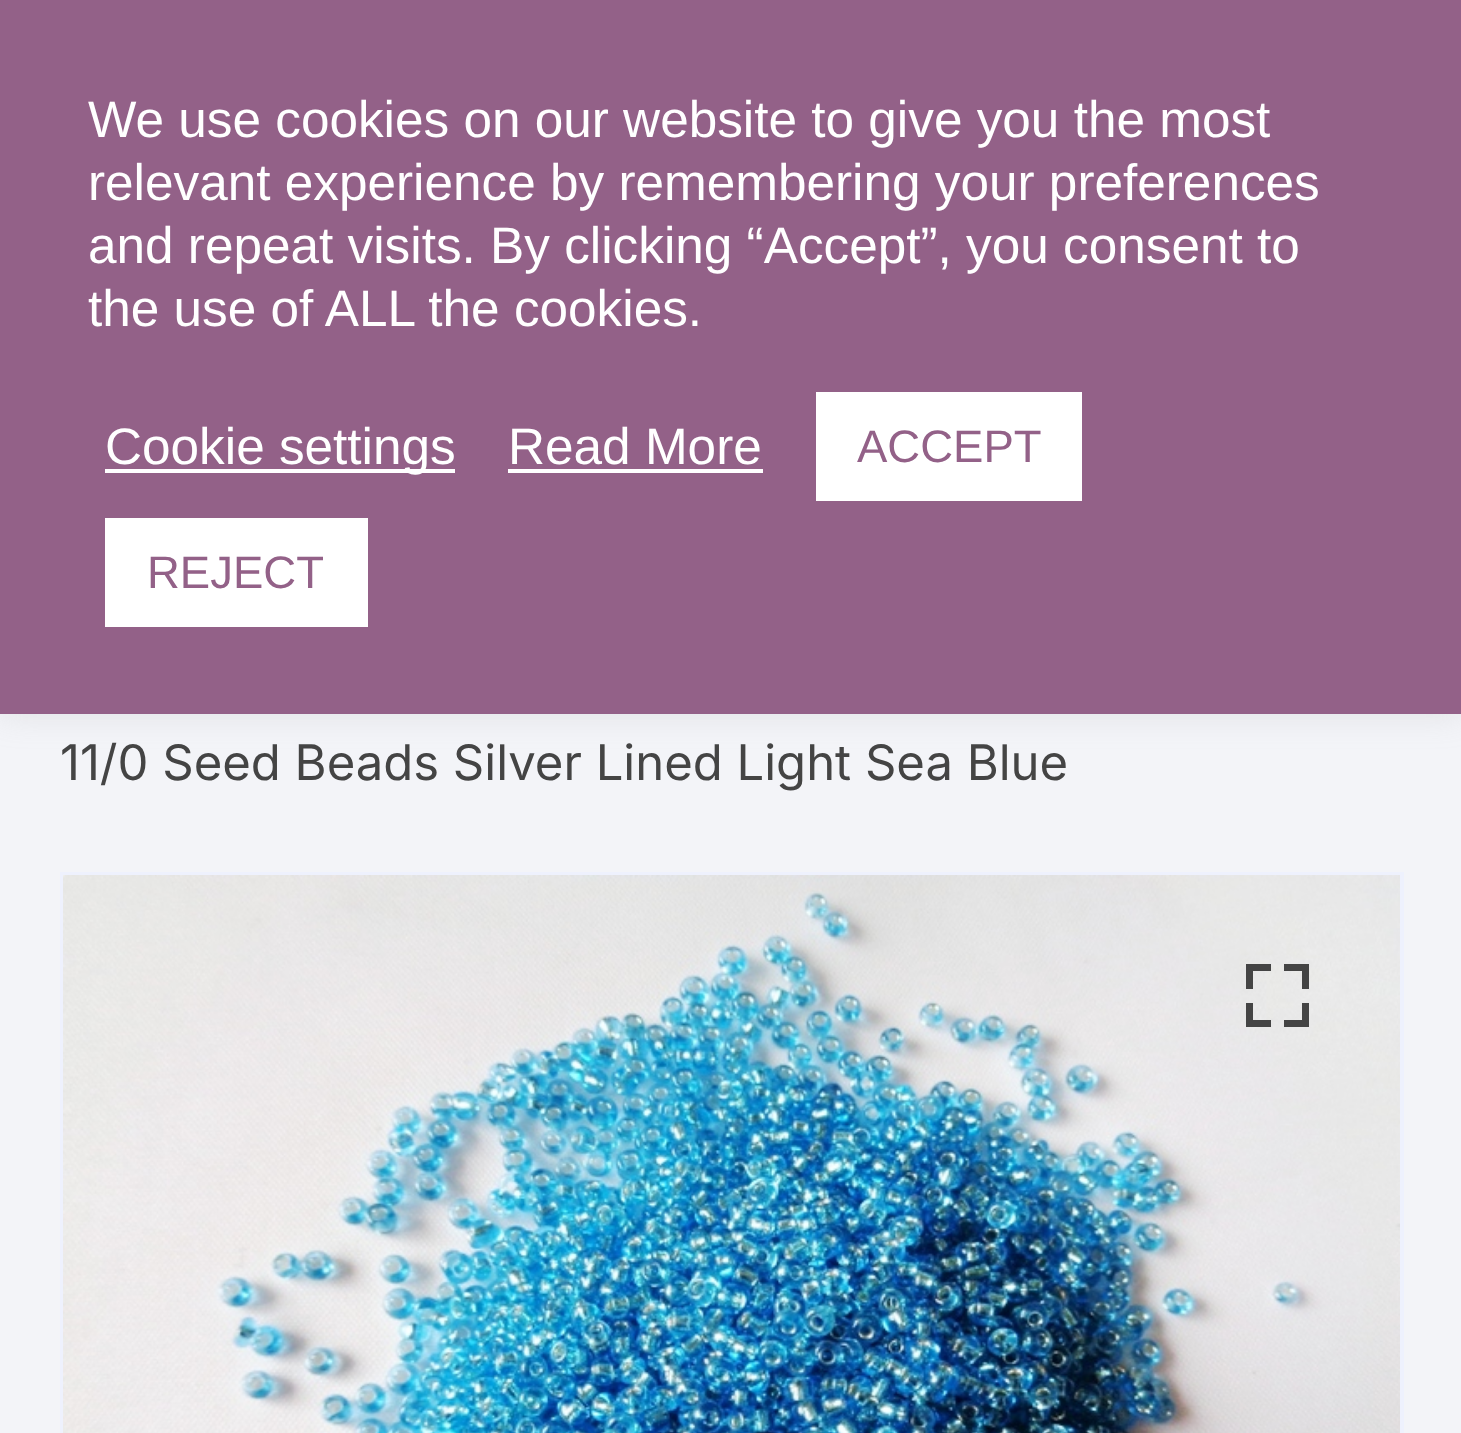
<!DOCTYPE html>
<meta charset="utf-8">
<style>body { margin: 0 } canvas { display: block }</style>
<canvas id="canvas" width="1461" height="1433"></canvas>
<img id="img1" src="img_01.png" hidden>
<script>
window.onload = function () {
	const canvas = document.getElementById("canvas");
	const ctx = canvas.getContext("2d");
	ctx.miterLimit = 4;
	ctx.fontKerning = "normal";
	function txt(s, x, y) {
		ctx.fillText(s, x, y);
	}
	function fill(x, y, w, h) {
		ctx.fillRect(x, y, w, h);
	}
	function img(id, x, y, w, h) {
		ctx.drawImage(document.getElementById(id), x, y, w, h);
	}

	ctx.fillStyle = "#F3F4F8";
	fill(0, 0, 1461, 1433);
	ctx.fillStyle = "rgba(172, 171, 171, 0.3)";
	ctx.filter = "blur(17.5px)";
	ctx.beginPath();
	ctx.rect(0, -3, 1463, 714);
	ctx.fill();
	ctx.filter = "none";
	ctx.fillStyle = "#936188";
	fill(0, 0, 1461, 714);
	ctx.fillStyle = "#FFFFFF";
	fill(105, 469, 350, 4);
	fill(508, 469, 255, 4);
	fill(816, 392, 266, 109);
	fill(105, 518, 263, 109);
	ctx.strokeStyle = "#EEF1FD";
	ctx.lineWidth = 4;
	ctx.strokeRect(62, 874, 1340, 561);
	img("img1", 63, 875, 1337, 558);
	ctx.fillStyle = "#444444";
	ctx.beginPath();
	ctx.moveTo(1253, 971);
	ctx.lineTo(1271, 971);
	ctx.lineTo(1271, 964);
	ctx.lineTo(1246, 964);
	ctx.lineTo(1246, 989);
	ctx.lineTo(1253, 989);
	ctx.closePath();
	ctx.moveTo(1271, 1020);
	ctx.lineTo(1253, 1020);
	ctx.lineTo(1253, 1003);
	ctx.lineTo(1246, 1003);
	ctx.lineTo(1246, 1027);
	ctx.lineTo(1271, 1027);
	ctx.closePath();
	ctx.moveTo(1309, 1003);
	ctx.lineTo(1302, 1003);
	ctx.lineTo(1302, 1020);
	ctx.lineTo(1284, 1020);
	ctx.lineTo(1284, 1027);
	ctx.lineTo(1309, 1027);
	ctx.closePath();
	ctx.moveTo(1302, 989);
	ctx.lineTo(1309, 989);
	ctx.lineTo(1309, 964);
	ctx.lineTo(1284, 964);
	ctx.lineTo(1284, 971);
	ctx.lineTo(1302, 971);
	ctx.closePath();
	ctx.fill();
	ctx.font = "51.3px Liberation Sans";
	ctx.fillStyle = "#FFFFFF";
	txt("We use cookies on our website to give you the most", 88, 137);
	txt("relevant experience by remembering your preferences", 88, 200);
	txt("and repeat visits. By clicking “Accept”, you consent to", 88, 263);
	txt("the use of ALL the cookies.", 88, 326);
	txt("Cookie settings", 105, 464);
	txt("Read More", 508, 464);
	ctx.font = "45.5px Liberation Sans";
	ctx.fillStyle = "#936188";
	txt("ACCEPT", 857, 462);
	txt("REJECT", 147, 588);
	ctx.font = "49px Inter";
	ctx.fillStyle = "#444444";
	txt("11/0 Seed Beads Silver Lined Light Sea Blue", 60, 780);
};
</script>
